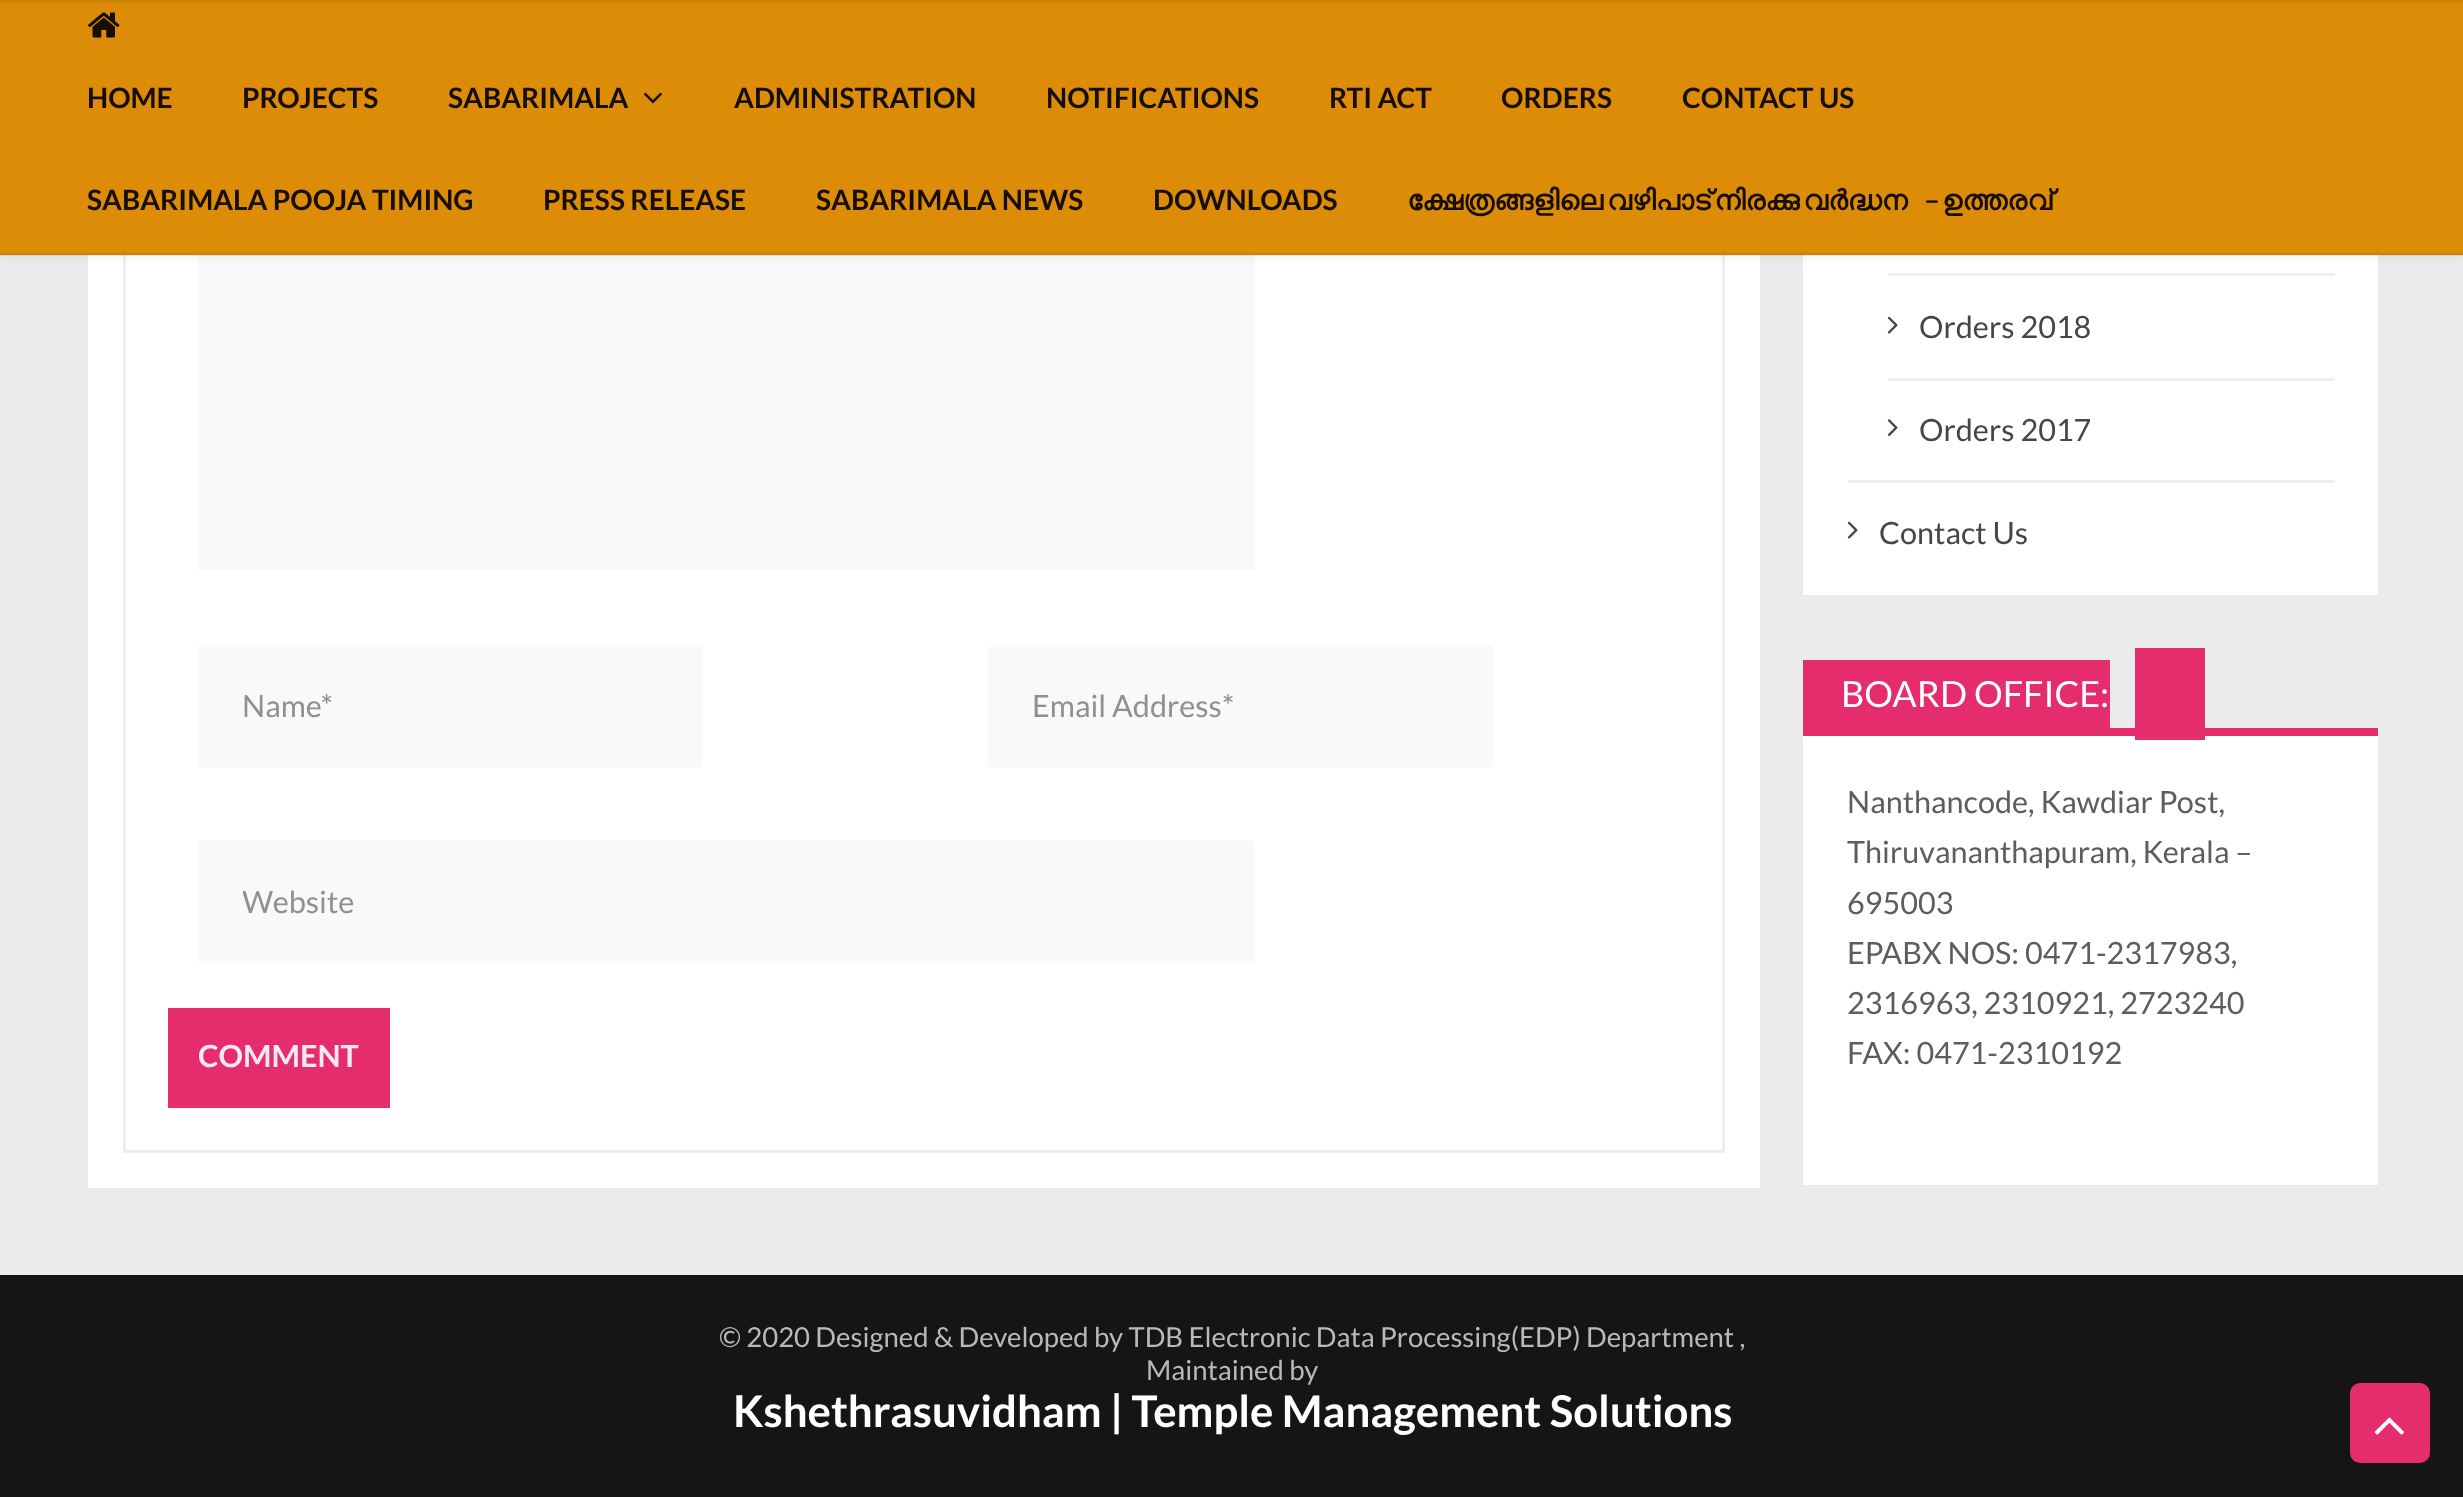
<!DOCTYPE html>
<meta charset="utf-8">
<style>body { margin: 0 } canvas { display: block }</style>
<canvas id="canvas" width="2463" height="1497"></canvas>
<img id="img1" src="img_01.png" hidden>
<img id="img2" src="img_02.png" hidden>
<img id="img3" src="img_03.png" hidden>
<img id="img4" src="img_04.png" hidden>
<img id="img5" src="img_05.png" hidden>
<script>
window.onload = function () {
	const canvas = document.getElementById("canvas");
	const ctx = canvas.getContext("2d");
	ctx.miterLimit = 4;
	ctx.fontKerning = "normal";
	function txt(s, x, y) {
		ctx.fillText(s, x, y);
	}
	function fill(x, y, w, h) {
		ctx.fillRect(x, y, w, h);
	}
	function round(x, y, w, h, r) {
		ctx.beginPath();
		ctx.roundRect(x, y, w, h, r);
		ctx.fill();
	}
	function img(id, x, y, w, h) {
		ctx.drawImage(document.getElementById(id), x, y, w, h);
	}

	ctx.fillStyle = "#EBEBEB";
	fill(0, 0, 2463, 1497);
	ctx.fillStyle = "#FFFFFF";
	fill(88, 255, 1672, 933);
	ctx.strokeStyle = "#EEEEEE";
	ctx.lineWidth = 3;
	ctx.strokeRect(124.5, 66.5, 1599, 1085);
	ctx.fillStyle = "#F9F9F9";
	fill(198, 255, 1057, 315);
	ctx.fillStyle = "#FFFFFF";
	fill(1803, 255, 575, 340);
	ctx.fillStyle = "rgba(0, 0, 0, 0.05)";
	ctx.filter = "blur(4px)";
	ctx.beginPath();
	ctx.rect(0, 3, 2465, 255);
	ctx.fill();
	ctx.filter = "none";
	ctx.fillStyle = "#DD8C08";
	fill(0, 3, 2463, 252);
	ctx.fillStyle = "#CC8207";
	fill(0, 0, 2463, 3);
	ctx.fillStyle = "rgba(0, 0, 0, 0.07)";
	fill(0, 253, 2463, 3);
	img("img1", 88, 12, 32, 26);
	img("img2", 644, 92, 18, 12);
	ctx.fillStyle = "#F9F9F9";
	round(198, 645, 505, 123, 5);
	round(988, 645, 505, 123, 5);
	round(198, 840, 1057, 123, 5);
	ctx.fillStyle = "#E52D6D";
	fill(168, 1008, 222, 100);
	ctx.fillStyle = "#EFEFEF";
	fill(1848, 480, 487, 3);
	fill(1888, 273, 447, 3);
	fill(1888, 378, 447, 3);
	img("img3", 1887, 316, 11, 18);
	img("img4", 1887, 419, 11, 18);
	img("img3", 1847, 521, 11, 18);
	ctx.fillStyle = "#E52D6D";
	fill(1803, 660, 307, 68);
	fill(1803, 728, 575, 8);
	ctx.fillStyle = "#FFFFFF";
	fill(1803, 736, 575, 449);
	ctx.fillStyle = "#E52D6D";
	fill(2135, 648, 70, 92);
	ctx.fillStyle = "#151515";
	fill(0, 1275, 2463, 222);
	ctx.fillStyle = "#E52D6D";
	round(2350, 1383, 80, 80, 10);
	img("img5", 2374, 1417, 30, 18);
	ctx.font = "bold 28px Lato";
	ctx.fillStyle = "#160E01";
	txt("HOME", 87, 108);
	txt("PROJECTS", 242, 108);
	txt("SABARIMALA", 448, 108);
	txt("ADMINISTRATION", 734, 108);
	txt("NOTIFICATIONS", 1046, 108);
	txt("RTI ACT", 1329, 108);
	txt("ORDERS", 1501, 108);
	txt("CONTACT US", 1682, 108);
	txt("SABARIMALA POOJA TIMING", 87, 210);
	txt("PRESS RELEASE", 543, 210);
	txt("SABARIMALA NEWS", 816, 210);
	txt("DOWNLOADS", 1153, 210);
	ctx.wordSpacing = "-3px";
	ctx.font = "bold 28px FreeSans";
	txt("ക്ഷേത്രങ്ങളിലെ വഴിപാട് നിരക്കു വർദ്ധന", 1407, 210);
	ctx.wordSpacing = "0px";
	ctx.font = "bold 28px Lato";
	txt("–", 1924, 210);
	ctx.font = "bold 28px FreeSans";
	txt("ഉത്തരവ്", 1942, 210);
	ctx.font = "30.6px Lato";
	ctx.fillStyle = "#909090";
	txt("Name*", 242, 717);
	txt("Email Address*", 1032, 717);
	ctx.save();
	ctx.beginPath();
	ctx.rect(243, 883, 970, 37);
	ctx.clip();
	txt("Website", 242, 913);
	ctx.restore();
	ctx.font = "bold 30.6px Lato";
	ctx.fillStyle = "#FCEAF0";
	txt("COMMENT", 198, 1067);
	ctx.font = "30.6px Lato";
	ctx.fillStyle = "#464646";
	txt("Orders 2018", 1919, 338);
	txt("Orders 2017", 1919, 441);
	txt("Contact Us", 1879, 544);
	ctx.font = "36px Lato";
	ctx.fillStyle = "#FFFFFF";
	txt("BOARD OFFICE:", 1841, 707);
	ctx.font = "30.6px Lato";
	ctx.fillStyle = "#5D5D5D";
	txt("Nanthancode, Kawdiar Post,", 1847, 813);
	txt("Thiruvananthapuram, Kerala –", 1847, 863);
	txt("695003", 1847, 914);
	txt("EPABX NOS: 0471-2317983,", 1847, 964);
	txt("2316963, 2310921, 2723240", 1847, 1014);
	txt("FAX: 0471-2310192", 1847, 1064);
	ctx.font = "27.5px Lato";
	ctx.fillStyle = "#B9B9B9";
	txt("© 2020 Designed & Developed by TDB Electronic Data Processing(EDP) Department ,", 719, 1347);
	txt("Maintained by", 1146, 1380);
	ctx.font = "bold 43.75px Lato";
	ctx.fillStyle = "#FFFFFF";
	txt("Kshethrasuvidham | Temple Management Solutions", 733, 1427);
};
</script>
